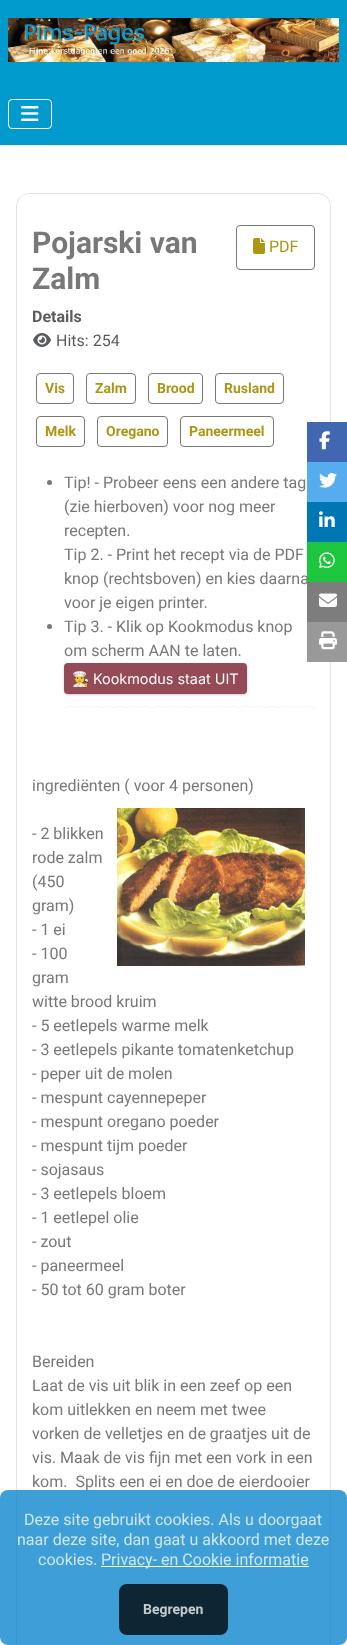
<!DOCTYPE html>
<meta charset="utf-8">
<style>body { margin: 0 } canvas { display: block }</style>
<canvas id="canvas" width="347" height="1645"></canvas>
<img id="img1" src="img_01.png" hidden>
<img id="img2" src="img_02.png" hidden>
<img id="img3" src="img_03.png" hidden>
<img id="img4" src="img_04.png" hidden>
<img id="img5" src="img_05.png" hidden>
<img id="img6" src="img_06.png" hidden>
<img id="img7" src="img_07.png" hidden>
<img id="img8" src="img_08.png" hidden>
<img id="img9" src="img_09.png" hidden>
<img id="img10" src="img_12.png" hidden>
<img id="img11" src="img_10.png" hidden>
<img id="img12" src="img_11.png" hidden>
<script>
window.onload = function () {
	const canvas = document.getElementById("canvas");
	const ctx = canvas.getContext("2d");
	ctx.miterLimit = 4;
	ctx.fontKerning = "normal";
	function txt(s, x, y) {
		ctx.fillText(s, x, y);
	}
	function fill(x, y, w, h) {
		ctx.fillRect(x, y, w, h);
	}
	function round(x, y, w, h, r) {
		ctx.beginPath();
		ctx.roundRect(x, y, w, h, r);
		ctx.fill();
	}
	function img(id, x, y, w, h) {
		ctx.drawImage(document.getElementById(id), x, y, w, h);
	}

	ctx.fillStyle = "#FFFFFF";
	fill(0, 0, 347, 1645);
	ctx.fillStyle = "#009ACD";
	fill(0, 0, 347, 145);
	ctx.fillStyle = "#EAEAEA";
	fill(0, 145, 347, 1);
	img("img1", 8, 18, 331, 44);
	ctx.beginPath();
	ctx.roundRect(8.5, 99.5, 43, 29, 3.5);
	ctx.strokeStyle = "#FFFFFF";
	ctx.stroke();
	img("img2", 21, 106, 18, 15);
	ctx.beginPath();
	ctx.roundRect(16.5, 193.5, 314, 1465, 12.5);
	ctx.strokeStyle = "#DFE3E7";
	ctx.stroke();
	ctx.beginPath();
	ctx.roundRect(236.5, 225.5, 78, 44, 3.5);
	ctx.strokeStyle = "#787878";
	ctx.stroke();
	img("img3", 253, 238, 12, 16);
	img("img4", 33, 333, 18, 14);
	ctx.beginPath();
	ctx.roundRect(36.5, 373.5, 37, 30, 3.5);
	ctx.stroke();
	ctx.beginPath();
	ctx.roundRect(86.5, 373.5, 49, 30, 3.5);
	ctx.stroke();
	ctx.beginPath();
	ctx.roundRect(148.5, 373.5, 54, 30, 3.5);
	ctx.stroke();
	ctx.beginPath();
	ctx.roundRect(215.5, 373.5, 68, 30, 3.5);
	ctx.stroke();
	ctx.beginPath();
	ctx.roundRect(36.5, 416.5, 48, 30, 3.5);
	ctx.stroke();
	ctx.beginPath();
	ctx.roundRect(97.5, 416.5, 70, 30, 3.5);
	ctx.stroke();
	ctx.beginPath();
	ctx.roundRect(180.5, 416.5, 93, 30, 3.5);
	ctx.stroke();
	ctx.fillStyle = "#787878";
	ctx.beginPath();
	ctx.arc(49.5, 482.5, 2.5, 0, Math.PI * 2);
	ctx.fill();
	ctx.beginPath();
	ctx.arc(49.5, 626.5, 2.5, 0, Math.PI * 2);
	ctx.fill();
	ctx.fillStyle = "rgba(0, 0, 0, 0.2)";
	ctx.filter = "blur(1px)";
	ctx.beginPath();
	ctx.roundRect(64, 664, 183, 31, 4);
	ctx.fill();
	ctx.filter = "none";
	ctx.fillStyle = "#954B56";
	round(64, 663, 183, 31, 4);
	img("img5", 64, 706, 251, 2);
	img("img6", 117, 808, 188, 158);
	ctx.fillStyle = "#4267B2";
	fill(307, 422, 40, 40);
	img("img7", 319, 431, 11, 19);
	ctx.fillStyle = "#55ACEE";
	fill(307, 462, 40, 40);
	img("img8", 319, 473, 18, 15);
	ctx.fillStyle = "#0077B5";
	fill(307, 502, 40, 40);
	img("img9", 319, 511, 16, 16);
	ctx.fillStyle = "#999999";
	fill(307, 622, 40, 40);
	img("img10", 319, 631, 18, 19);
	ctx.font = "bold 30px Roboto";
	ctx.fillStyle = "#787878";
	txt("Pojarski van", 32, 253);
	txt("Zalm", 32, 289);
	ctx.font = "16px Roboto";
	ctx.fillStyle = "#AB9715";
	txt("PDF", 269, 252);
	ctx.font = "bold 16px Roboto";
	ctx.fillStyle = "#595C5F";
	txt("Details", 32, 322);
	ctx.font = "16px Roboto";
	txt("Hits: 254", 56, 346);
	ctx.font = "bold 14px Roboto";
	ctx.fillStyle = "#AB9715";
	txt("Vis", 45, 393);
	txt("Zalm", 95, 393);
	txt("Brood", 157, 393);
	txt("Rusland", 224, 393);
	txt("Melk", 45, 436);
	txt("Oregano", 106, 436);
	txt("Paneermeel", 189, 436);
	ctx.font = "16px Roboto";
	ctx.fillStyle = "#787878";
	txt("Tip! - Probeer eens een andere tag", 64, 488);
	txt("(zie hierboven) voor nog meer", 64, 512);
	txt("recepten.", 64, 536);
	txt("Tip 2. - Print het recept via de PDF", 64, 560);
	txt("knop (rechtsboven) en kies daarna", 64, 584);
	txt("voor je eigen printer.", 64, 608);
	txt("Tip 3. - Klik op Kookmodus knop", 64, 632);
	txt("om scherm AAN te laten.", 64, 656);
	ctx.font = "14.4px Noto Color Emoji";
	ctx.fillStyle = "#FFFFFF";
	txt("👨‍🍳", 72, 684);
	ctx.font = "14.4px Inter";
	txt("Kookmodus staat UIT", 93, 684);
	ctx.font = "16px Roboto";
	ctx.fillStyle = "#787878";
	txt("ingrediënten ( voor 4 personen)", 32, 791);
	txt("- 2 blikken", 32, 839);
	txt("rode zalm", 32, 863);
	txt("(450", 32, 887);
	txt("gram)", 32, 911);
	txt("- 1 ei", 32, 935);
	txt("- 100", 32, 959);
	txt("gram", 32, 983);
	txt("witte brood kruim", 32, 1007);
	txt("- 5 eetlepels warme melk", 32, 1031);
	txt("- 3 eetlepels pikante tomatenketchup", 32, 1055);
	txt("- peper uit de molen", 32, 1079);
	txt("- mespunt cayennepeper", 32, 1103);
	txt("- mespunt oregano poeder", 32, 1127);
	txt("- mespunt tijm poeder", 32, 1151);
	txt("- sojasaus", 32, 1175);
	txt("- 3 eetlepels bloem", 32, 1199);
	txt("- 1 eetlepel olie", 32, 1223);
	txt("- zout", 32, 1247);
	txt("- paneermeel", 32, 1271);
	txt("- 50 tot 60 gram boter", 32, 1295);
	txt("Bereiden", 32, 1367);
	txt("Laat de vis uit blik in een zeef op een", 32, 1391);
	txt("kom uitlekken en neem met twee", 32, 1415);
	txt("vorken de velletjes en de graatjes uit de", 32, 1439);
	txt("vis. Maak de vis fijn met een vork in een", 32, 1463);
	txt("kom.  Splits een ei en doe de eierdooier", 32, 1487);
	ctx.fillStyle = "#1EC53F";
	fill(307, 542, 40, 40);
	img("img11", 319, 552, 16, 17);
	ctx.fillStyle = "#7D7D7D";
	fill(307, 582, 40, 40);
	img("img12", 319, 593, 18, 14);
	ctx.fillStyle = "rgba(0, 128, 204, 0.76)";
	round(0, 1490, 347, 155, 8);
	ctx.fillStyle = "#D0E8F6";
	txt("Deze site gebruikt cookies. Als u doorgaat", 24, 1525);
	txt("naar deze site, dan gaat u akkoord met deze", 17, 1545);
	txt("cookies.", 38, 1565);
	ctx.fillStyle = "#FFFFFF";
	fill(101, 1566, 208, 1);
	ctx.fillStyle = "#D0E8F6";
	txt("Privacy- en Cookie informatie", 101, 1565);
	ctx.fillStyle = "rgba(0, 0, 0, 0.76)";
	round(119, 1584, 109, 51, 8);
	ctx.font = "bold 14px Roboto";
	ctx.fillStyle = "#C5CBCE";
	txt("Begrepen", 143, 1614);
};
</script>
